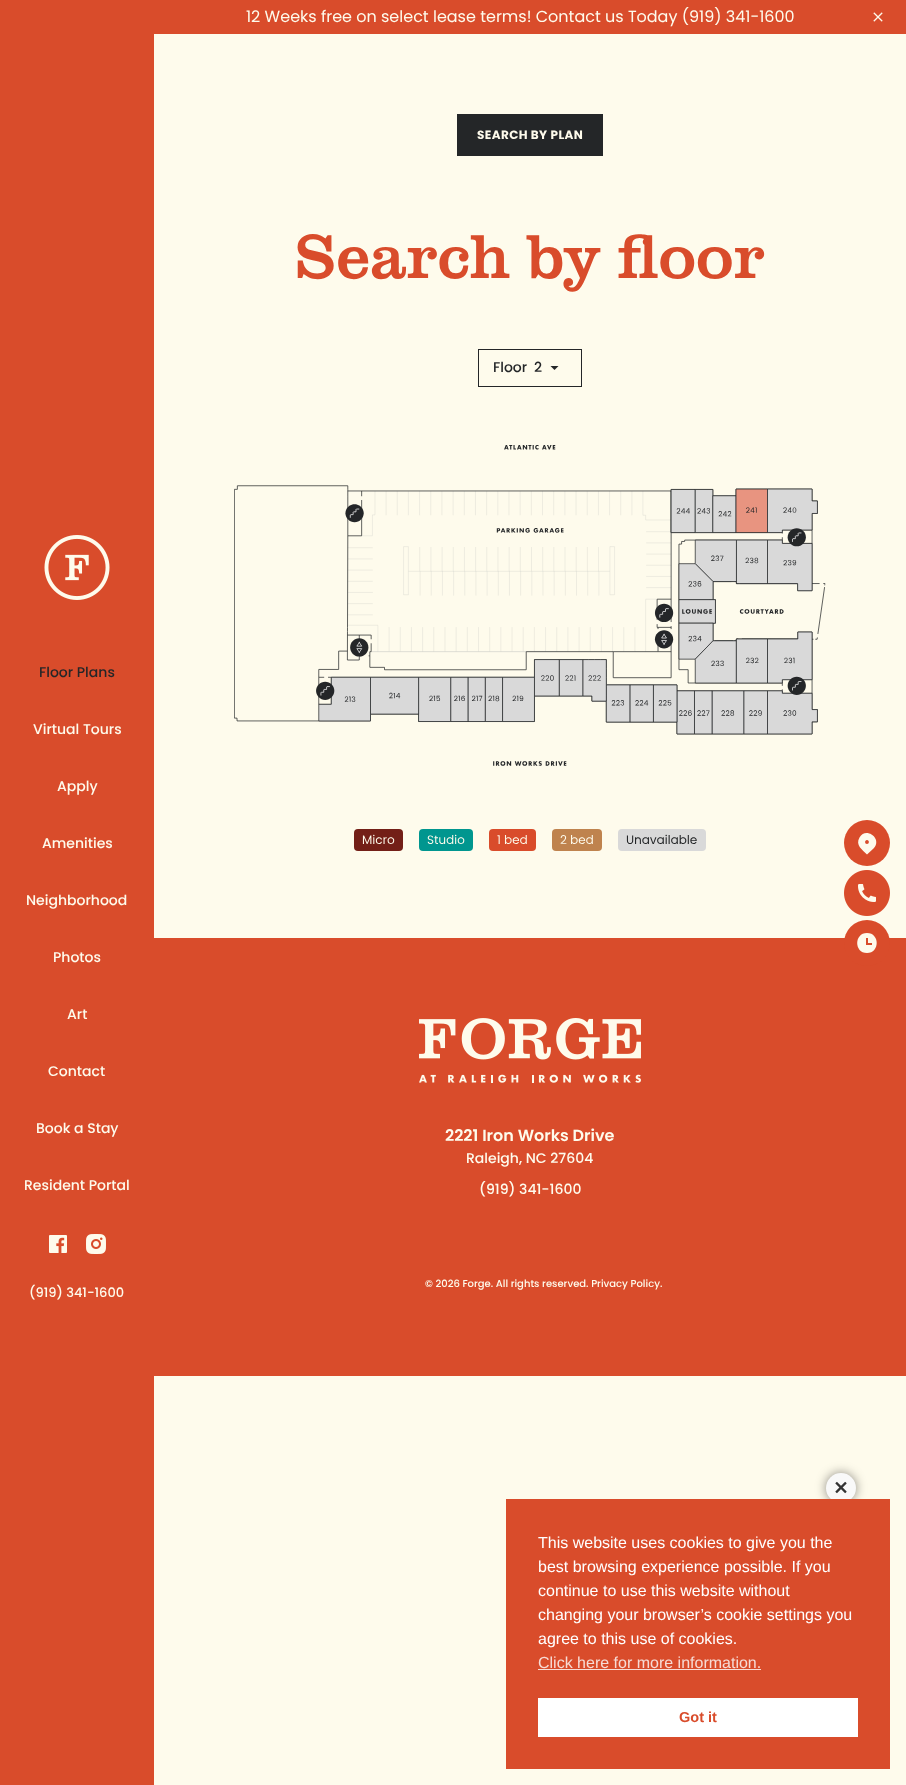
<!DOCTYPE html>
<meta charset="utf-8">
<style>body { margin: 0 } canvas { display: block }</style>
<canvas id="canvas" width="906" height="1785"></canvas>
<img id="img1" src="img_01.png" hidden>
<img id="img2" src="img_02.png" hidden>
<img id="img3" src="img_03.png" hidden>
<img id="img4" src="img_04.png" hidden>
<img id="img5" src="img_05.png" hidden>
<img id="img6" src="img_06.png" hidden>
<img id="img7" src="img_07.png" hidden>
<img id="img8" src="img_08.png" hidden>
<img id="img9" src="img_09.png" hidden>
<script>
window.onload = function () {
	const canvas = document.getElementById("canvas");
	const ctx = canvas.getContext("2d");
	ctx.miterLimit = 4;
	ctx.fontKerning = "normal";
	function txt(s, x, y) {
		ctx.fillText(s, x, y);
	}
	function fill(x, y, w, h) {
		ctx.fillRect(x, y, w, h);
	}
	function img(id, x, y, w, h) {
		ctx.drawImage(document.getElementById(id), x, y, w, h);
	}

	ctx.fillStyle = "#FEFBEC";
	fill(0, 0, 906, 1785);
	ctx.fillStyle = "#D94C2B";
	fill(0, 0, 154, 1785);
	img("img1", 44, 535, 66, 65);
	img("img2", 49, 1235, 18, 18);
	img("img3", 86, 1234, 20, 20);
	fill(154, 0, 752, 34);
	img("img4", 873, 12, 10, 10);
	ctx.fillStyle = "#242628";
	fill(457, 114, 146, 42);
	ctx.strokeStyle = "#242628";
	ctx.strokeRect(478.5, 349.5, 103, 37);
	ctx.beginPath();
	ctx.moveTo(554.5, 370);
	ctx.lineTo(550.5, 366);
	ctx.lineTo(558.5, 366);
	ctx.closePath();
	ctx.fill();
	img("img5", 234, 445, 592, 321);
	img("img6", 354, 829, 352, 22);
	ctx.fillStyle = "#D94C2B";
	fill(154, 938, 752, 438);
	img("img7", 419, 1018, 222, 65);
	ctx.beginPath();
	ctx.arc(867, 843, 23, 0, Math.PI * 2);
	ctx.fill();
	ctx.fillStyle = "#FEFBEC";
	ctx.beginPath();
	ctx.moveTo(873.5, 848.5);
	ctx.lineTo(867, 854.5);
	ctx.bezierCurveTo(862.5, 850, 855, 845, 859.5, 837.5);
	ctx.bezierCurveTo(866, 826, 883, 839, 873.5, 848.5);
	ctx.closePath();
	ctx.moveTo(867, 844);
	ctx.bezierCurveTo(869.5, 844, 869.5, 840, 867, 840);
	ctx.bezierCurveTo(864.5, 840, 864.5, 844, 867, 844);
	ctx.closePath();
	ctx.fill();
	img("img8", 844, 870, 46, 46);
	ctx.fillStyle = "#D94C2B";
	ctx.beginPath();
	ctx.arc(867, 943, 23, 0, Math.PI * 2);
	ctx.fill();
	ctx.fillStyle = "#FEFBEC";
	ctx.beginPath();
	ctx.moveTo(867, 953);
	ctx.bezierCurveTo(854, 953, 854, 933, 867, 933);
	ctx.bezierCurveTo(880, 933, 880, 953, 867, 953);
	ctx.closePath();
	ctx.moveTo(868, 943);
	ctx.lineTo(868, 938);
	ctx.lineTo(866, 938);
	ctx.lineTo(866, 945);
	ctx.lineTo(872, 945);
	ctx.lineTo(872, 943);
	ctx.closePath();
	ctx.fill();
	ctx.fillStyle = "rgba(0, 0, 0, 0.45)";
	ctx.filter = "blur(5.5px)";
	ctx.beginPath();
	ctx.roundRect(826, 1473, 30, 30, 15);
	ctx.fill();
	ctx.filter = "none";
	ctx.fillStyle = "#F9F9F9";
	ctx.beginPath();
	ctx.arc(841, 1488, 15, 0, Math.PI * 2);
	ctx.fill();
	img("img9", 835, 1481, 12, 13);
	ctx.fillStyle = "#D94C2B";
	fill(506, 1499, 384, 270);
	ctx.fillStyle = "#F7DBD5";
	fill(538, 1669, 223, 1);
	ctx.fillStyle = "#FFFFFF";
	fill(538, 1698, 320, 39);
	ctx.font = "500 14px Poppins";
	ctx.fillStyle = "#242628";
	txt("Floor Plans", 39, 677);
	ctx.fillStyle = "#FEFBEC";
	txt("Virtual Tours", 33, 734);
	txt("Apply", 57, 791);
	txt("Amenities", 42, 848);
	txt("Neighborhood", 26, 905);
	txt("Photos", 53, 962);
	txt("Art", 67, 1019);
	txt("Contact", 48, 1076);
	txt("Book a Stay", 36, 1133);
	txt("Resident Portal", 24, 1190);
	ctx.font = "500 13px Poppins";
	txt("(919) 341-1600", 29, 1297);
	ctx.font = "16px Poppins";
	txt("12 Weeks free on select lease terms! Contact us Today (919) 341-1600", 246, 22);
	ctx.letterSpacing = "0.4px";
	ctx.font = "bold 12px Poppins";
	txt("SEARCH BY PLAN", 477, 139);
	ctx.letterSpacing = "0px";
	ctx.font = "64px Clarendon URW";
	ctx.fillStyle = "#D94C2B";
	txt("Search by floor", 295, 278);
	ctx.font = "500 14px Poppins";
	ctx.fillStyle = "#242628";
	txt("Floor", 493, 372);
	txt("2", 534, 372);
	ctx.font = "600 16px Poppins";
	ctx.fillStyle = "#FEFBEC";
	txt("2221 Iron Works Drive", 445, 1141);
	ctx.font = "500 14px Poppins";
	txt("Raleigh, NC 27604", 466, 1163);
	txt("(919) 341-1600", 479, 1194);
	ctx.font = "500 10px Poppins";
	txt("© 2026 Forge. All rights reserved. Privacy Policy.", 425, 1287);
	ctx.font = "16px Liberation Sans";
	ctx.fillStyle = "#FFFFFF";
	txt("This website uses cookies to give you the", 538, 1548);
	txt("best browsing experience possible. If you", 538, 1572);
	txt("continue to use this website without", 538, 1596);
	txt("changing your browser’s cookie settings you", 538, 1620);
	txt("agree to this use of cookies.", 538, 1644);
	ctx.fillStyle = "#F7DBD5";
	txt("Click here for more information.", 538, 1668);
	ctx.font = "bold 14.5px Liberation Sans";
	ctx.fillStyle = "#D94C2B";
	txt("Got it", 679, 1722);
};
</script>
